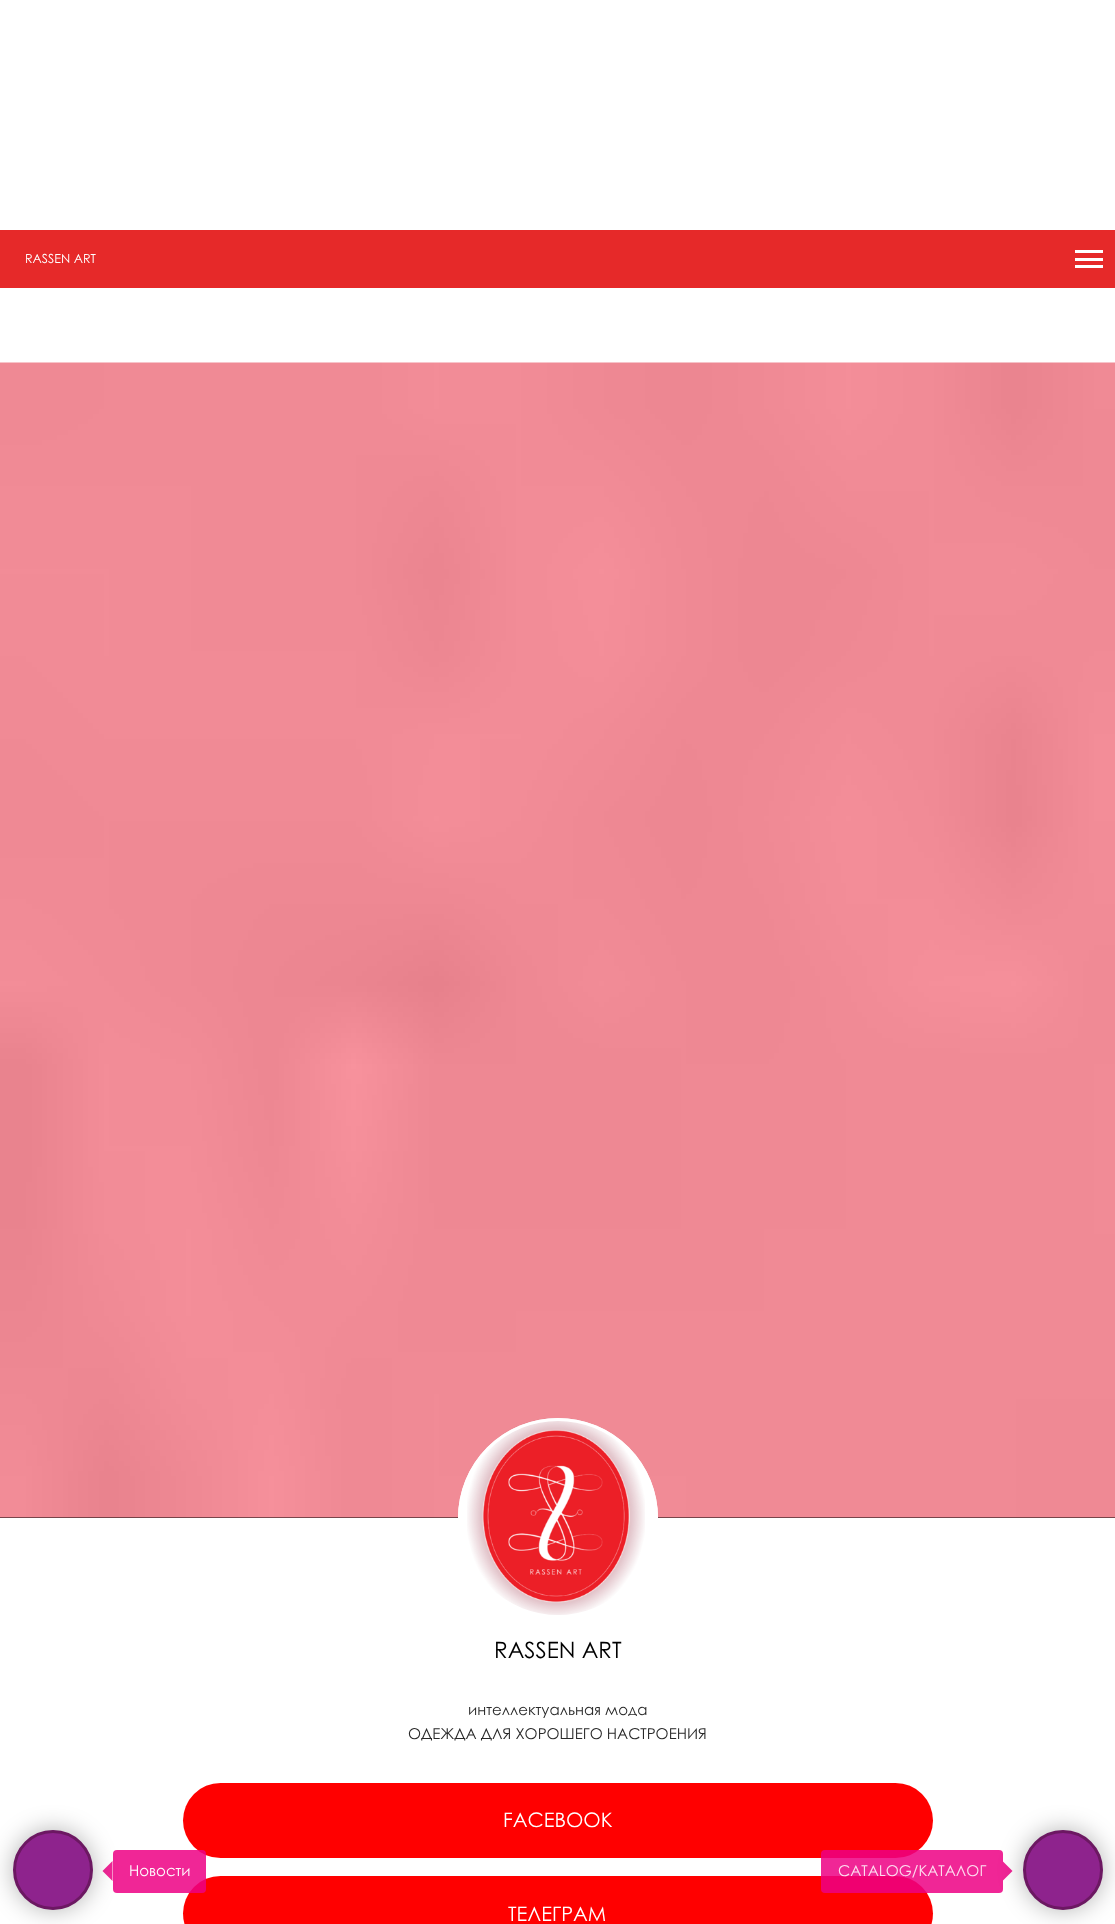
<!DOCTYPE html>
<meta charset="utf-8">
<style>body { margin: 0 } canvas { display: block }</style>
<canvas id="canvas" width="1115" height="1924"></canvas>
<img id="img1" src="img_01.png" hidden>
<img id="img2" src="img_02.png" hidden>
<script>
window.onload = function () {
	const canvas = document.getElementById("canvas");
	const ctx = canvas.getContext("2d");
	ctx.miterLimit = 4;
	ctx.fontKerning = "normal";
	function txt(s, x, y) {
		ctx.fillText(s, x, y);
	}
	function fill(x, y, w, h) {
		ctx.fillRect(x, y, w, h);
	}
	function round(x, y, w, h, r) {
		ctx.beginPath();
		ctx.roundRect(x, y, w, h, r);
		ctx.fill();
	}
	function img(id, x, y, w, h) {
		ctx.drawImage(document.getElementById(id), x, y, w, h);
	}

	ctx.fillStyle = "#FFFFFF";
	fill(0, 0, 1115, 1924);
	ctx.fillStyle = "#E62929";
	fill(0, 230, 1115, 58);
	ctx.fillStyle = "#FFFFFF";
	fill(1075, 250, 28, 3);
	fill(1075, 258, 28, 3);
	fill(1075, 265, 28, 3);
	ctx.fillStyle = "#000000";
	fill(0, 1517, 1115, 1);
	img("img1", 0, 362, 1115, 1156);
	ctx.fillStyle = "#FFFFFF";
	ctx.beginPath();
	ctx.arc(558, 1518, 100, 0, Math.PI * 2);
	ctx.fill();
	img("img2", 467, 1418, 178, 197);
	ctx.beginPath();
	ctx.arc(558, 1518, 98.5, 0, Math.PI * 2);
	ctx.strokeStyle = "#FFFFFF";
	ctx.lineWidth = 3;
	ctx.stroke();
	ctx.fillStyle = "#FF0000";
	round(183, 1783, 750, 75, 37.5);
	round(183, 1876, 750, 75, 37.5);
	ctx.fillStyle = "rgba(237, 0, 132, 0.85)";
	round(113, 1850, 93, 43, 4);
	ctx.fillStyle = "#F02696";
	ctx.beginPath();
	ctx.moveTo(112.5, 1861);
	ctx.lineTo(112.5, 1881);
	ctx.lineTo(102.5, 1871);
	ctx.closePath();
	ctx.fill();
	ctx.fillStyle = "rgba(0, 0, 0, 0.3)";
	ctx.filter = "blur(12.5px)";
	ctx.beginPath();
	ctx.roundRect(13, 1830, 80, 80, 40);
	ctx.fill();
	ctx.filter = "none";
	ctx.fillStyle = "#8E238D";
	ctx.beginPath();
	ctx.arc(53, 1870, 38.5, 0, Math.PI * 2);
	ctx.fill();
	ctx.strokeStyle = "#6C1862";
	ctx.stroke();
	ctx.fillStyle = "rgba(237, 0, 132, 0.85)";
	round(821, 1850, 182, 43, 4);
	ctx.fillStyle = "#F02696";
	ctx.beginPath();
	ctx.moveTo(1002.5, 1881);
	ctx.lineTo(1002.5, 1861);
	ctx.lineTo(1012.5, 1871);
	ctx.closePath();
	ctx.fill();
	ctx.fillStyle = "rgba(0, 0, 0, 0.3)";
	ctx.filter = "blur(12.5px)";
	ctx.beginPath();
	ctx.roundRect(1023, 1830, 80, 80, 40);
	ctx.fill();
	ctx.filter = "none";
	ctx.fillStyle = "#8E238D";
	ctx.beginPath();
	ctx.arc(1063, 1870, 38.5, 0, Math.PI * 2);
	ctx.fill();
	ctx.stroke();
	ctx.font = "12.5px Century Gothic";
	ctx.fillStyle = "#FFFFFF";
	txt("RASSEN ART", 25, 263);
	ctx.font = "22.5px Century Gothic";
	ctx.fillStyle = "#000000";
	txt("RASSEN ART", 494, 1658);
	ctx.font = "15px Century Gothic";
	ctx.fillStyle = "#292929";
	txt("интеллектуальная мода", 468, 1715);
	txt("ОДЕЖДА ДЛЯ ХОРОШЕГО НАСТРОЕНИЯ", 408, 1739);
	ctx.fillStyle = "#FFFFFF";
	txt("Новости", 129, 1876);
	ctx.font = "20px Century Gothic";
	txt("FACEBOOK", 503, 1827);
	txt("ТЕЛЕГРАМ", 508, 1921);
	ctx.font = "15px Century Gothic";
	ctx.fillStyle = "#FDDEEF";
	txt("CATALOG/КАТАЛОГ", 838, 1876);
};
</script>
